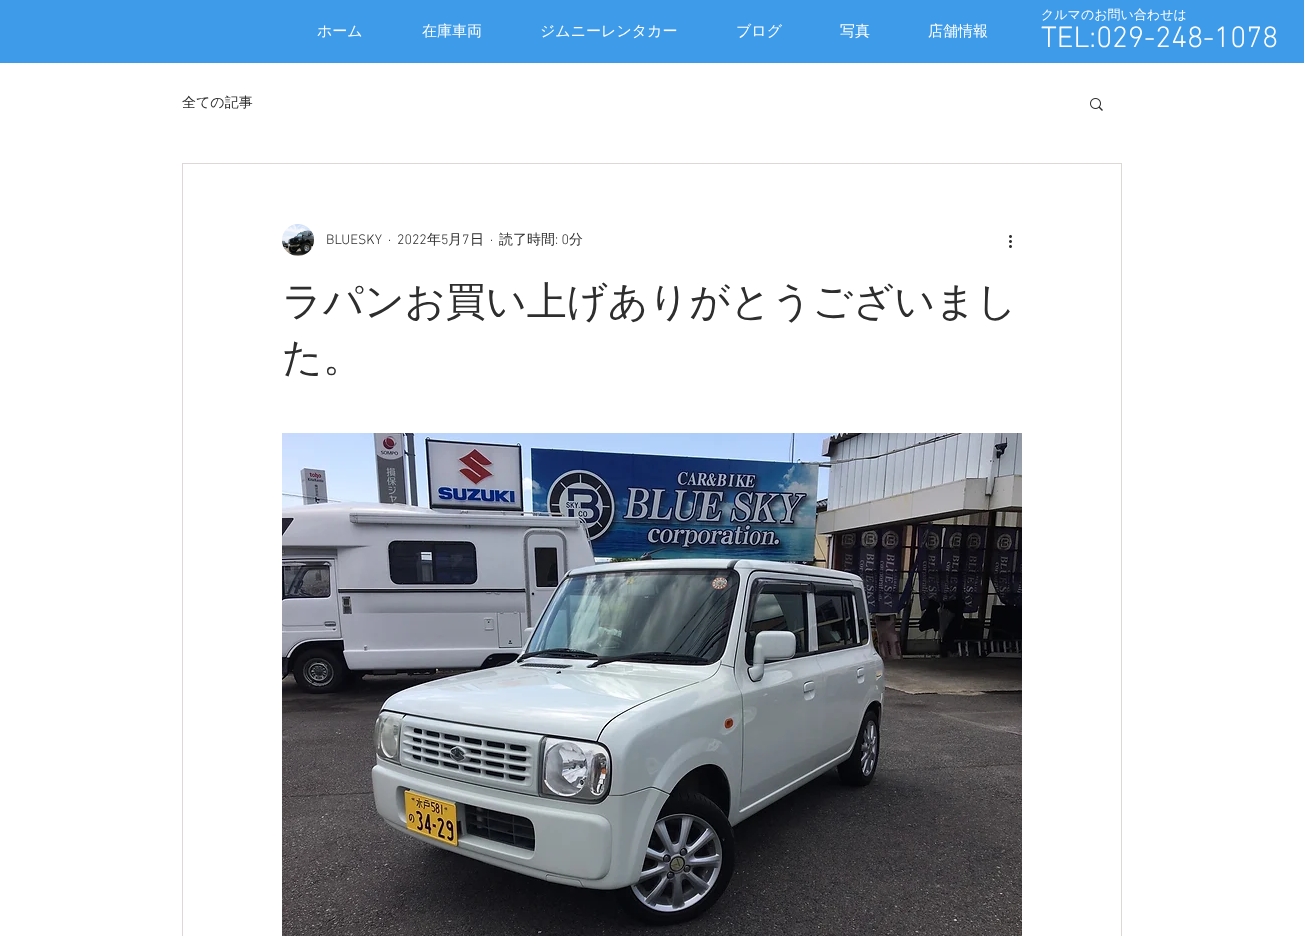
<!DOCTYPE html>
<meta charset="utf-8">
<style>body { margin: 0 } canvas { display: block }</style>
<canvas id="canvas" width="1304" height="936"></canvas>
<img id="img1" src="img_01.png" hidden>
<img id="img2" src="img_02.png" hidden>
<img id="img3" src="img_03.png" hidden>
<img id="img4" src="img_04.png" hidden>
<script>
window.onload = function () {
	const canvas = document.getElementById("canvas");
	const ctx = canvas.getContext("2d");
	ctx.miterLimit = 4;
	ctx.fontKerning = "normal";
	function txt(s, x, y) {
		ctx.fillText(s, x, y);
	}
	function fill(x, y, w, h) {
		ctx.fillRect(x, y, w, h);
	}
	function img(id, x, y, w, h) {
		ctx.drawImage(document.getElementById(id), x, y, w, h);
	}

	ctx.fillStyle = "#FFFFFF";
	fill(0, 0, 1304, 936);
	ctx.fillStyle = "#3D9BE9";
	fill(0, 0, 1304, 63);
	img("img1", 1090, 98, 13, 13);
	ctx.strokeStyle = "#DDD7D7";
	ctx.strokeRect(182.5, 163.5, 939, 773);
	img("img2", 282, 224, 32, 32);
	img("img3", 1009, 235, 3, 13);
	img("img4", 282, 433, 740, 503);
	ctx.font = "500 15px WenQuanYi Zen Hei";
	ctx.fillStyle = "#FFFFFF";
	txt("ホーム", 317, 36);
	txt("在庫車両", 422, 36);
	txt("ジムニーレンタカー", 540, 36);
	txt("ブログ", 736, 36);
	txt("写真", 840, 36);
	txt("店舗情報", 928, 36);
	ctx.font = "500 13px WenQuanYi Zen Hei";
	txt("クルマのお問い合わせは", 1041, 19);
	ctx.font = "300 30px 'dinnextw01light'";
	txt("TEL:029-248-1078", 1041, 47);
	ctx.font = "500 14px WenQuanYi Zen Hei";
	ctx.fillStyle = "#2F2E2E";
	txt("全ての記事", 182, 107);
	ctx.font = "300 14px 'dinnextw01light'";
	txt("BLUESKY", 326, 244);
	txt("·", 388, 244);
	txt("2022", 397, 244);
	ctx.font = "500 14px WenQuanYi Zen Hei";
	txt("年", 427, 244);
	ctx.font = "300 14px 'dinnextw01light'";
	txt("5", 441, 244);
	ctx.font = "500 14px WenQuanYi Zen Hei";
	txt("月", 448, 244);
	ctx.font = "300 14px 'dinnextw01light'";
	txt("7", 462, 244);
	ctx.font = "500 14px WenQuanYi Zen Hei";
	txt("日", 470, 244);
	ctx.font = "300 14px 'dinnextw01light'";
	txt("·", 490, 244);
	ctx.font = "500 14px WenQuanYi Zen Hei";
	txt("読了時間", 499, 244);
	ctx.font = "300 14px 'dinnextw01light'";
	txt(": 0", 555, 244);
	ctx.font = "500 14px WenQuanYi Zen Hei";
	txt("分", 569, 244);
	ctx.font = "500 40px WenQuanYi Zen Hei";
	txt("ラパンお買い上げありがとうございまし", 282, 315);
	txt("た。", 282, 371);
};
</script>
